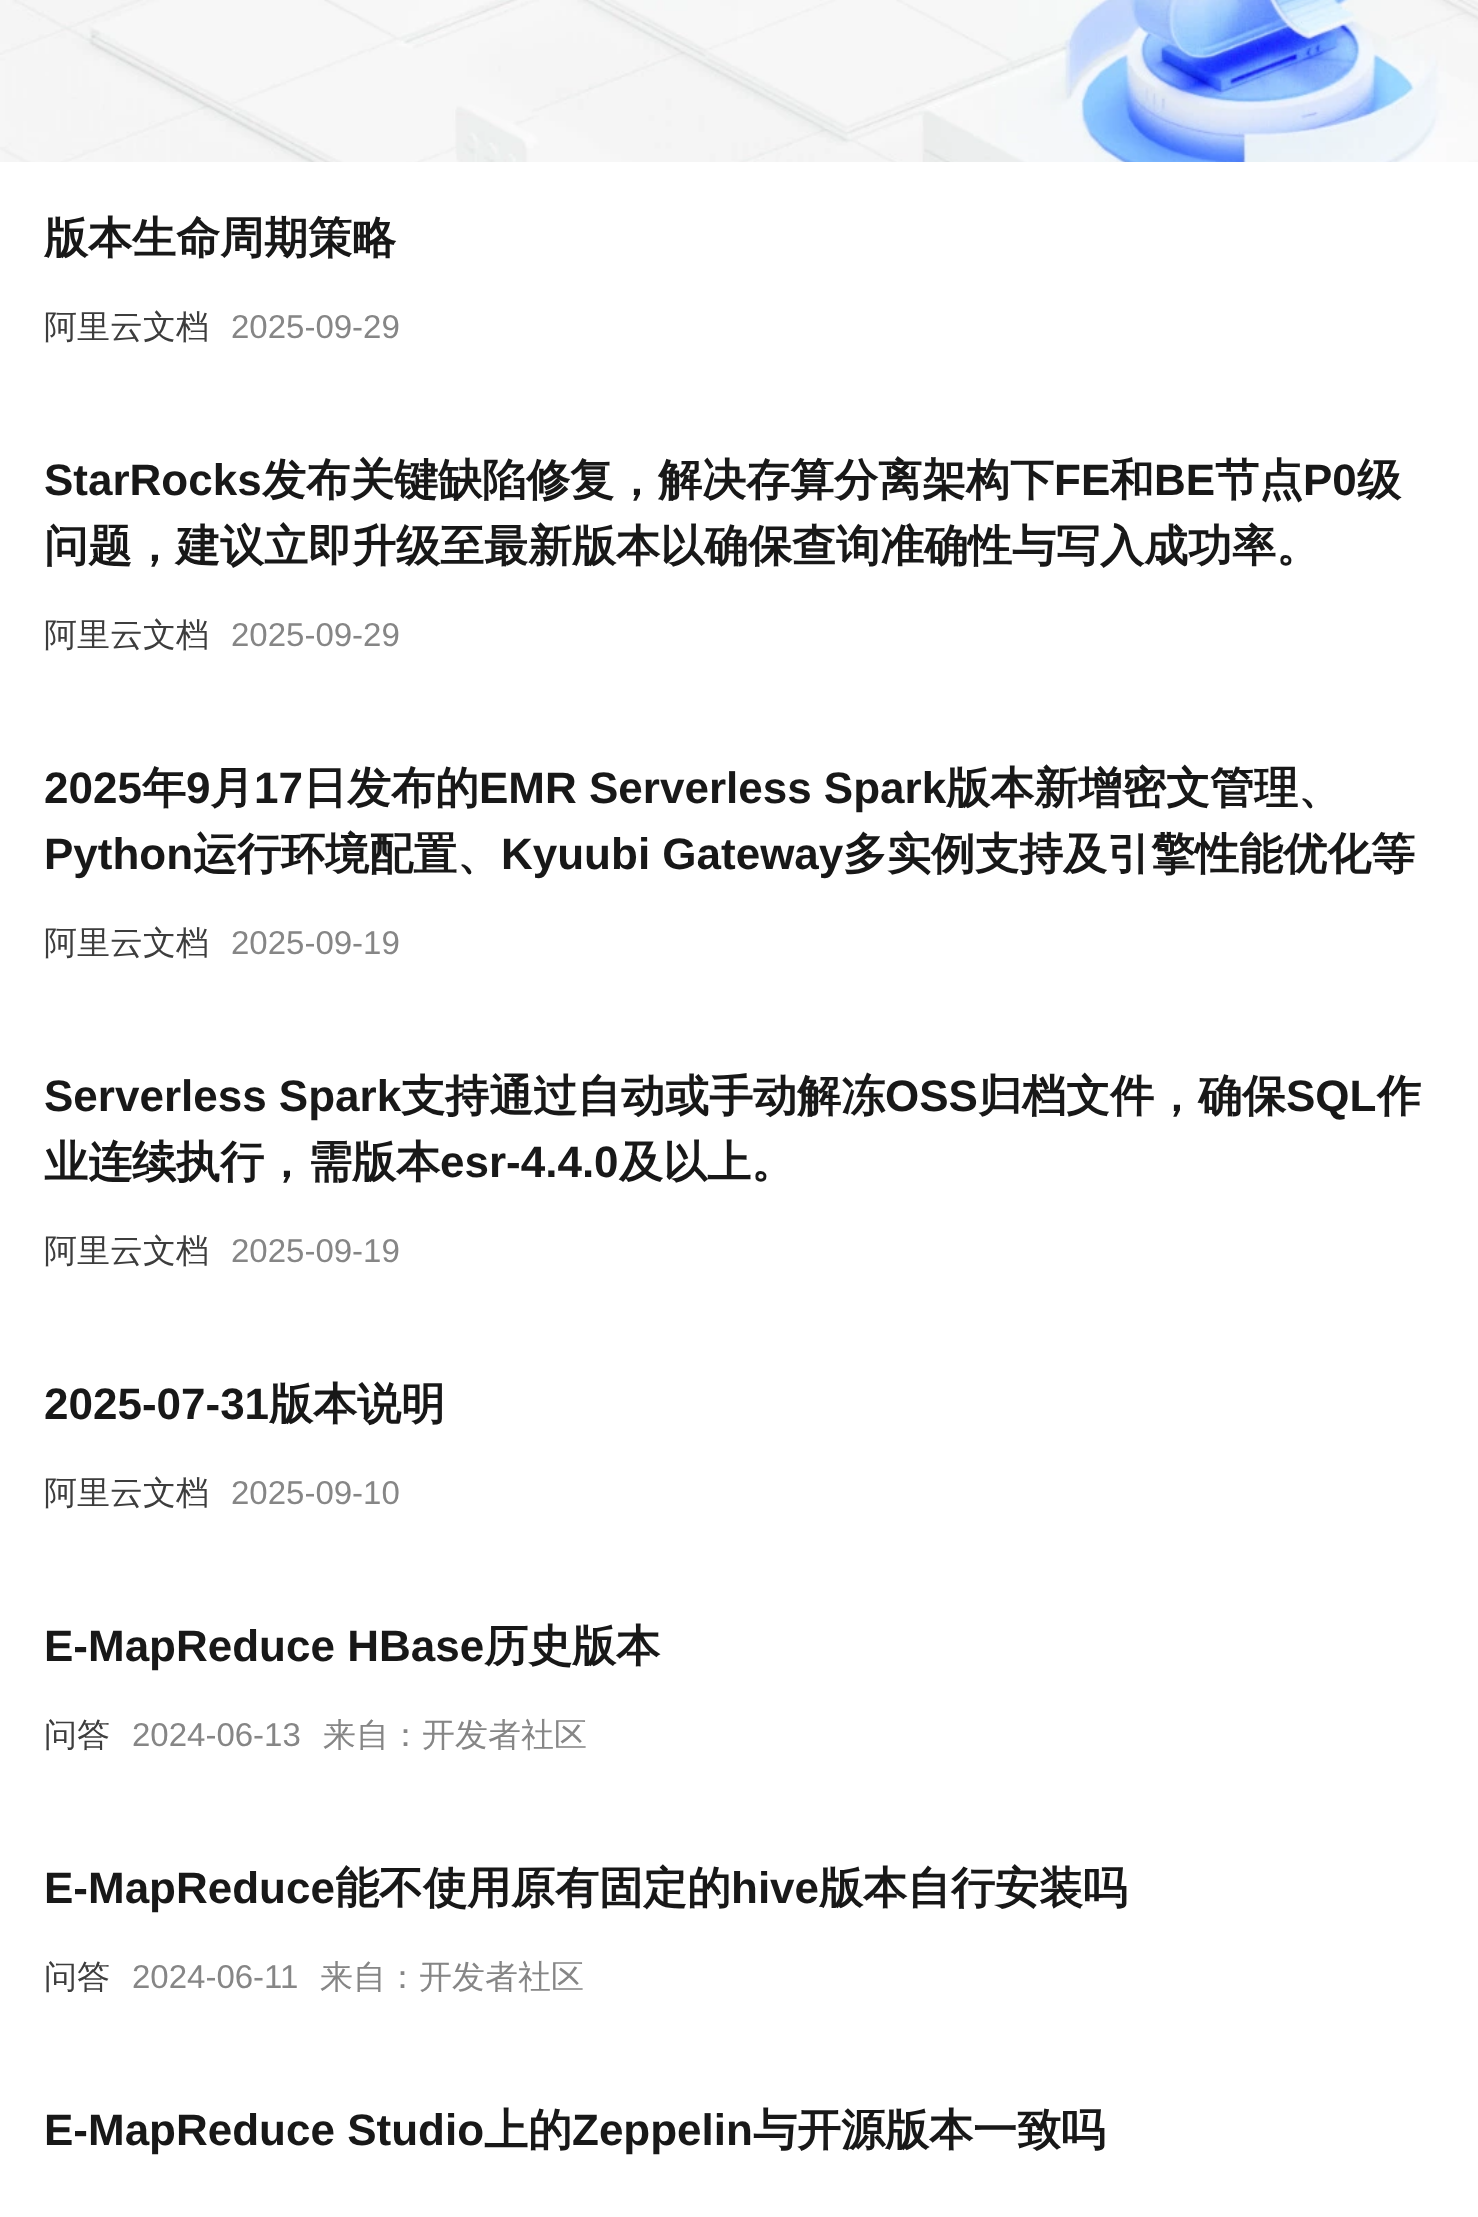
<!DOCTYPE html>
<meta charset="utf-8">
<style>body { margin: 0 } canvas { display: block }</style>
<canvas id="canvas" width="1478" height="2217"></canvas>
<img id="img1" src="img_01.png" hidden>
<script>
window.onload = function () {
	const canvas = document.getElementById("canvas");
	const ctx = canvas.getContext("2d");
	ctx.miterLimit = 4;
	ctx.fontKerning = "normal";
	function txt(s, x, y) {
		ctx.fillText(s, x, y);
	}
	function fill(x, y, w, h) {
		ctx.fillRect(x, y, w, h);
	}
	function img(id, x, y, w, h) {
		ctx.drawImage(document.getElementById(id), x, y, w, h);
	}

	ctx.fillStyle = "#FFFFFF";
	fill(0, 0, 1478, 2217);
	img("img1", 0, 0, 1478, 162);
	ctx.font = "bold 44px WenQuanYi Zen Hei";
	ctx.fillStyle = "#181818";
	txt("版本生命周期策略", 44, 253);
	ctx.font = "500 33px WenQuanYi Zen Hei";
	ctx.fillStyle = "#3D3D3D";
	txt("阿里云文档", 44, 338);
	ctx.font = "33px Liberation Sans";
	ctx.fillStyle = "#868686";
	txt("2025-09-29", 231, 338);
	ctx.font = "bold 44px Liberation Sans";
	ctx.fillStyle = "#181818";
	txt("StarRocks", 44, 495);
	ctx.font = "bold 44px WenQuanYi Zen Hei";
	txt("发布关键缺陷修复，解决存算分离架构下", 262, 495);
	ctx.font = "bold 44px Liberation Sans";
	txt("FE", 1054, 495);
	ctx.font = "bold 44px WenQuanYi Zen Hei";
	txt("和", 1110, 495);
	ctx.font = "bold 44px Liberation Sans";
	txt("BE", 1154, 495);
	ctx.font = "bold 44px WenQuanYi Zen Hei";
	txt("节点", 1215, 495);
	ctx.font = "bold 44px Liberation Sans";
	txt("P0", 1303, 495);
	ctx.font = "bold 44px WenQuanYi Zen Hei";
	txt("级", 1357, 495);
	txt("问题，建议立即升级至最新版本以确保查询准确性与写入成功率。", 44, 561);
	ctx.font = "500 33px WenQuanYi Zen Hei";
	ctx.fillStyle = "#3D3D3D";
	txt("阿里云文档", 44, 646);
	ctx.font = "33px Liberation Sans";
	ctx.fillStyle = "#868686";
	txt("2025-09-29", 231, 646);
	ctx.font = "bold 44px Liberation Sans";
	ctx.fillStyle = "#181818";
	txt("2025", 44, 803);
	ctx.font = "bold 44px WenQuanYi Zen Hei";
	txt("年", 142, 803);
	ctx.font = "bold 44px Liberation Sans";
	txt("9", 186, 803);
	ctx.font = "bold 44px WenQuanYi Zen Hei";
	txt("月", 210, 803);
	ctx.font = "bold 44px Liberation Sans";
	txt("17", 254, 803);
	ctx.font = "bold 44px WenQuanYi Zen Hei";
	txt("日发布的", 303, 803);
	ctx.font = "bold 44px Liberation Sans";
	txt("EMR Serverless Spark", 479, 803);
	ctx.font = "bold 44px WenQuanYi Zen Hei";
	txt("版本新增密文管理、", 946, 803);
	ctx.font = "bold 44px Liberation Sans";
	txt("Python", 44, 869);
	ctx.font = "bold 44px WenQuanYi Zen Hei";
	txt("运行环境配置、", 193, 869);
	ctx.font = "bold 44px Liberation Sans";
	txt("Kyuubi Gateway", 501, 869);
	ctx.font = "bold 44px WenQuanYi Zen Hei";
	txt("多实例支持及引擎性能优化等", 843, 869);
	ctx.font = "500 33px WenQuanYi Zen Hei";
	ctx.fillStyle = "#3D3D3D";
	txt("阿里云文档", 44, 954);
	ctx.font = "33px Liberation Sans";
	ctx.fillStyle = "#868686";
	txt("2025-09-19", 231, 954);
	ctx.font = "bold 44px Liberation Sans";
	ctx.fillStyle = "#181818";
	txt("Serverless Spark", 44, 1111);
	ctx.font = "bold 44px WenQuanYi Zen Hei";
	txt("支持通过自动或手动解冻", 401, 1111);
	ctx.font = "bold 44px Liberation Sans";
	txt("OSS", 885, 1111);
	ctx.font = "bold 44px WenQuanYi Zen Hei";
	txt("归档文件，确保", 978, 1111);
	ctx.font = "bold 44px Liberation Sans";
	txt("SQL", 1286, 1111);
	ctx.font = "bold 44px WenQuanYi Zen Hei";
	txt("作", 1377, 1111);
	txt("业连续执行，需版本", 44, 1177);
	ctx.font = "bold 44px Liberation Sans";
	txt("esr-4.4.0", 440, 1177);
	ctx.font = "bold 44px WenQuanYi Zen Hei";
	txt("及以上。", 619, 1177);
	ctx.font = "500 33px WenQuanYi Zen Hei";
	ctx.fillStyle = "#3D3D3D";
	txt("阿里云文档", 44, 1262);
	ctx.font = "33px Liberation Sans";
	ctx.fillStyle = "#868686";
	txt("2025-09-19", 231, 1262);
	ctx.font = "bold 44px Liberation Sans";
	ctx.fillStyle = "#181818";
	txt("2025-07-31", 44, 1419);
	ctx.font = "bold 44px WenQuanYi Zen Hei";
	txt("版本说明", 269, 1419);
	ctx.font = "500 33px WenQuanYi Zen Hei";
	ctx.fillStyle = "#3D3D3D";
	txt("阿里云文档", 44, 1504);
	ctx.font = "33px Liberation Sans";
	ctx.fillStyle = "#868686";
	txt("2025-09-10", 231, 1504);
	ctx.font = "bold 44px Liberation Sans";
	ctx.fillStyle = "#181818";
	txt("E-MapReduce HBase", 44, 1661);
	ctx.font = "bold 44px WenQuanYi Zen Hei";
	txt("历史版本", 484, 1661);
	ctx.font = "500 33px WenQuanYi Zen Hei";
	ctx.fillStyle = "#3D3D3D";
	txt("问答", 44, 1746);
	ctx.font = "33px Liberation Sans";
	ctx.fillStyle = "#868686";
	txt("2024-06-13", 132, 1746);
	ctx.font = "500 33px WenQuanYi Zen Hei";
	txt("来自：开发者社区", 323, 1746);
	ctx.font = "bold 44px Liberation Sans";
	ctx.fillStyle = "#181818";
	txt("E-MapReduce", 44, 1903);
	ctx.font = "bold 44px WenQuanYi Zen Hei";
	txt("能不使用原有固定的", 335, 1903);
	ctx.font = "bold 44px Liberation Sans";
	txt("hive", 731, 1903);
	ctx.font = "bold 44px WenQuanYi Zen Hei";
	txt("版本自行安装吗", 819, 1903);
	ctx.font = "500 33px WenQuanYi Zen Hei";
	ctx.fillStyle = "#3D3D3D";
	txt("问答", 44, 1988);
	ctx.font = "33px Liberation Sans";
	ctx.fillStyle = "#868686";
	txt("2024-06-11", 132, 1988);
	ctx.font = "500 33px WenQuanYi Zen Hei";
	txt("来自：开发者社区", 320, 1988);
	ctx.font = "bold 44px Liberation Sans";
	ctx.fillStyle = "#181818";
	txt("E-MapReduce Studio", 44, 2145);
	ctx.font = "bold 44px WenQuanYi Zen Hei";
	txt("上的", 484, 2145);
	ctx.font = "bold 44px Liberation Sans";
	txt("Zeppelin", 572, 2145);
	ctx.font = "bold 44px WenQuanYi Zen Hei";
	txt("与开源版本一致吗", 753, 2145);
};
</script>
